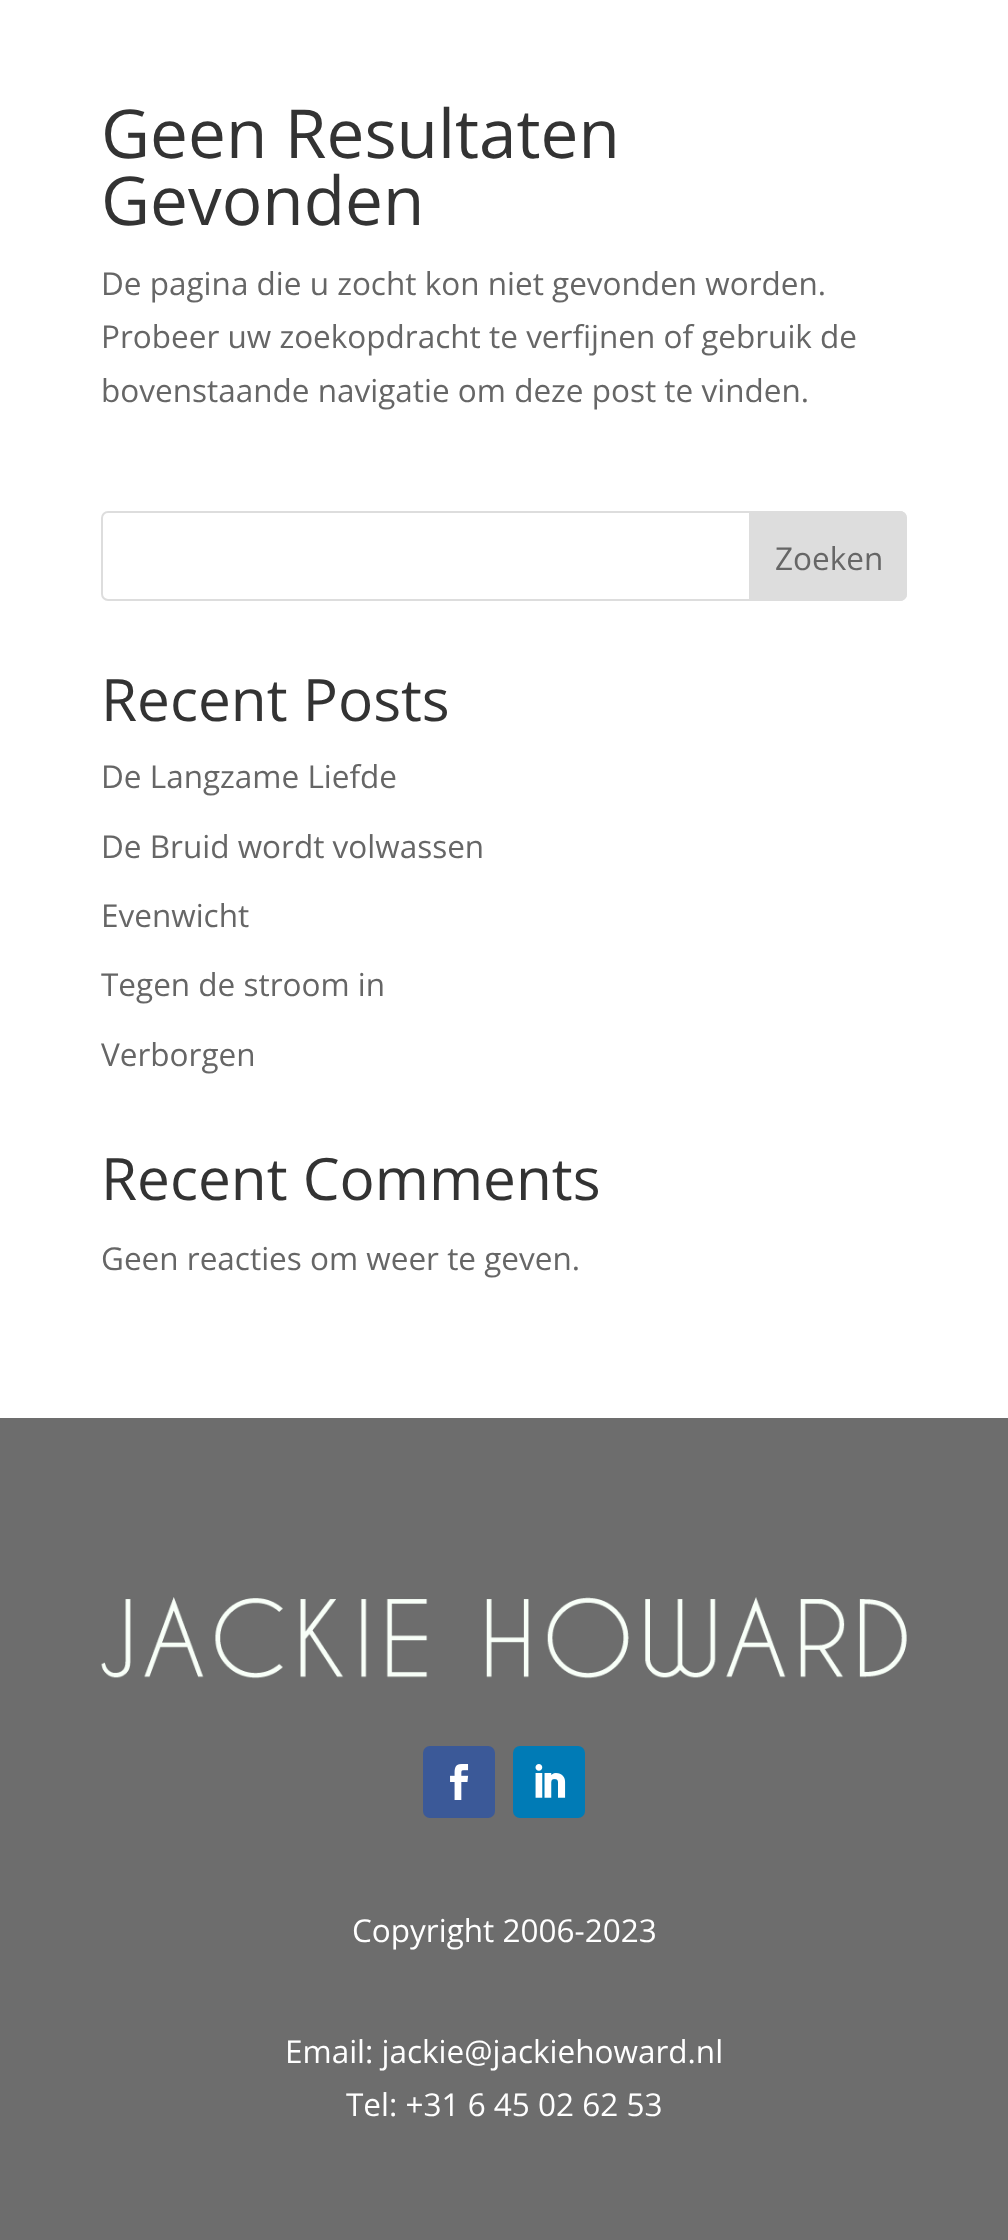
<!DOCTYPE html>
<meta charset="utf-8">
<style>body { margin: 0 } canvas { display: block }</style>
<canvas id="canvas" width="1008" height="2240"></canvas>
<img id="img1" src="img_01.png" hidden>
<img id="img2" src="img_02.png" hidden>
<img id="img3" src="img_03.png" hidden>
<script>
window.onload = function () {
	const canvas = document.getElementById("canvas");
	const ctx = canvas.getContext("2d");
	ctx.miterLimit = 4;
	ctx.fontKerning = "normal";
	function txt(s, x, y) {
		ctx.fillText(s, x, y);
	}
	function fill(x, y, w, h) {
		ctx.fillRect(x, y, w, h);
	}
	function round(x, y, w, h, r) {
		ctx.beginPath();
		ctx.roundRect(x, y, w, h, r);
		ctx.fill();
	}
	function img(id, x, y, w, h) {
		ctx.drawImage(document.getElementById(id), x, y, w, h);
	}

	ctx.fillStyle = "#FFFFFF";
	fill(0, 0, 1008, 2240);
	ctx.beginPath();
	ctx.roundRect(102, 512, 804, 88, 6);
	ctx.strokeStyle = "#DDDDDD";
	ctx.lineWidth = 2;
	ctx.stroke();
	ctx.fillStyle = "#DDDDDD";
	ctx.beginPath();
	ctx.roundRect(750, 512, 156, 88, [0, 6, 6, 0]);
	ctx.fill();
	ctx.stroke();
	ctx.fillStyle = "#6D6D6D";
	fill(0, 1418, 1008, 822);
	img("img1", 101, 1597, 806, 82);
	ctx.fillStyle = "#3B5998";
	round(423, 1746, 72, 72, 7);
	img("img2", 450, 1764, 19, 36);
	ctx.fillStyle = "#007BB6";
	round(513, 1746, 72, 72, 7);
	img("img3", 535, 1764, 31, 34);
	ctx.font = "67.5px Open Sans";
	ctx.fillStyle = "#333333";
	txt("Geen Resultaten", 101, 158);
	txt("Gevonden", 101, 225);
	ctx.font = "31.5px Open Sans";
	ctx.fillStyle = "#666666";
	txt("De pagina die u zocht kon niet gevonden worden.", 101, 295);
	txt("Probeer uw zoekopdracht te verfijnen of gebruik de", 101, 348);
	txt("bovenstaande navigatie om deze post te vinden.", 101, 402);
	txt("Zoeken", 775, 570);
	ctx.font = "58.5px Open Sans";
	ctx.fillStyle = "#333333";
	txt("Recent Posts", 101, 721);
	ctx.font = "31.5px Open Sans";
	ctx.fillStyle = "#666666";
	txt("De Langzame Liefde", 101, 788);
	txt("De Bruid wordt volwassen", 101, 858);
	txt("Evenwicht", 101, 927);
	txt("Tegen de stroom in", 101, 996);
	txt("Verborgen", 101, 1066);
	ctx.font = "58.5px Open Sans";
	ctx.fillStyle = "#333333";
	txt("Recent Comments", 101, 1200);
	ctx.font = "31.5px Open Sans";
	ctx.fillStyle = "#666666";
	txt("Geen reacties om weer te geven.", 101, 1270);
	ctx.fillStyle = "#FFFFFF";
	txt("Copyright 2006-2023", 352, 1942);
	txt("Email: jackie@jackiehoward.nl", 285, 2063);
	txt("Tel: +31 6 45 02 62 53", 346, 2116);
};
</script>
